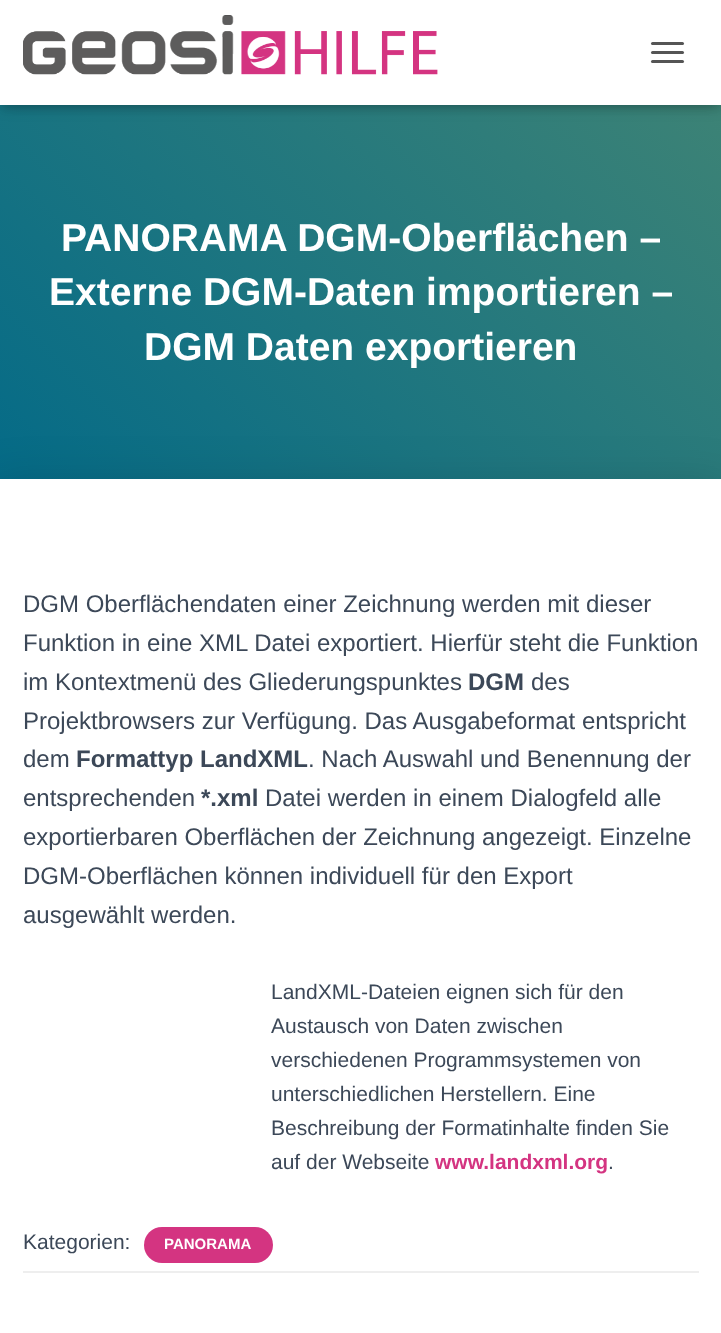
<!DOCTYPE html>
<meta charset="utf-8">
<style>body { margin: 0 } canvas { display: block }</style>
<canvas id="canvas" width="721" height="1333"></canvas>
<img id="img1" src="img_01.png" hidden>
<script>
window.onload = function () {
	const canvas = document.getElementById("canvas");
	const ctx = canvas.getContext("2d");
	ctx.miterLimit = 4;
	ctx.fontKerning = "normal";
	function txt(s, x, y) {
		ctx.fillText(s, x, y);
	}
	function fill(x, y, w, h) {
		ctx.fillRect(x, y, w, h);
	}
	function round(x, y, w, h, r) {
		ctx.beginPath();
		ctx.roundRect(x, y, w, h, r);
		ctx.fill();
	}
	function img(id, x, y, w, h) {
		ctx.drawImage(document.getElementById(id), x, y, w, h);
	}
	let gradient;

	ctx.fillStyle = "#FFFFFF";
	fill(0, 0, 721, 1333);
	gradient = ctx.createLinearGradient(38, 607, 683, -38);
	gradient.addColorStop(0, "#006989");
	gradient.addColorStop(1, "#428574");
	ctx.fillStyle = gradient;
	fill(0, 105, 721, 374);
	ctx.fillStyle = "rgba(0, 0, 0, 0.1)";
	ctx.filter = "blur(4px)";
	ctx.beginPath();
	ctx.rect(3, 9, 716, 99);
	ctx.fill();
	ctx.filter = "none";
	ctx.fillStyle = "rgba(0, 0, 0, 0.12)";
	ctx.filter = "blur(7.5px)";
	ctx.beginPath();
	ctx.rect(0, 2, 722, 105);
	ctx.fill();
	ctx.filter = "none";
	ctx.fillStyle = "rgba(0, 0, 0, 0.42)";
	ctx.filter = "blur(7.5px)";
	ctx.beginPath();
	ctx.rect(9, 11, 704, 87);
	ctx.fill();
	ctx.filter = "none";
	ctx.fillStyle = "#FFFFFF";
	fill(0, 0, 721, 105);
	img("img1", 23, 15, 415, 60);
	ctx.fillStyle = "#555555";
	round(651, 42, 33, 3, 1.5);
	round(651, 51, 33, 3, 1.5);
	round(651, 60, 33, 3, 1.5);
	ctx.fillStyle = "rgba(0, 0, 0, 0.12)";
	ctx.filter = "blur(22.5px)";
	ctx.beginPath();
	ctx.rect(-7, 480, 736, 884);
	ctx.fill();
	ctx.filter = "none";
	ctx.fillStyle = "#FFFFFF";
	fill(0, 479, 721, 854);
	ctx.fillStyle = "#D43481";
	round(144, 1227, 129, 36, 18);
	ctx.fillStyle = "#EEEEEE";
	fill(23, 1271, 676, 2);
	ctx.font = "bold 39px Liberation Sans";
	ctx.fillStyle = "#FFFFFF";
	txt("PANORAMA DGM-Oberflächen –", 61, 251);
	txt("Externe DGM-Daten importieren –", 49, 305);
	txt("DGM Daten exportieren", 144, 360);
	ctx.font = "24px Liberation Sans";
	ctx.fillStyle = "#3C4858";
	txt("DGM Oberflächendaten einer Zeichnung werden mit dieser", 23, 612);
	txt("Funktion in eine XML Datei exportiert. Hierfür steht die Funktion", 23, 651);
	txt("im Kontextmenü des Gliederungspunktes", 23, 690);
	ctx.font = "bold 24px Liberation Sans";
	txt("DGM", 468, 690);
	ctx.font = "24px Liberation Sans";
	txt("des", 531, 690);
	txt("Projektbrowsers zur Verfügung. Das Ausgabeformat entspricht", 23, 729);
	txt("dem", 23, 767);
	ctx.font = "bold 24px Liberation Sans";
	txt("Formattyp LandXML", 76, 767);
	ctx.font = "24px Liberation Sans";
	txt(". Nach Auswahl und Benennung der", 308, 767);
	txt("entsprechenden", 23, 806);
	ctx.font = "bold 24px Liberation Sans";
	txt("*.xml", 201, 806);
	ctx.font = "24px Liberation Sans";
	txt("Datei werden in einem Dialogfeld alle", 265, 806);
	txt("exportierbaren Oberflächen der Zeichnung angezeigt. Einzelne", 23, 845);
	txt("DGM-Oberflächen können individuell für den Export", 23, 884);
	txt("ausgewählt werden.", 23, 923);
	ctx.font = "21px Liberation Sans";
	txt("LandXML-Dateien eignen sich für den", 271, 999);
	txt("Austausch von Daten zwischen", 271, 1033);
	txt("verschiedenen Programmsystemen von", 271, 1067);
	txt("unterschiedlichen Herstellern. Eine", 271, 1101);
	txt("Beschreibung der Formatinhalte finden Sie", 271, 1135);
	txt("auf der Webseite", 271, 1169);
	ctx.font = "bold 21px Liberation Sans";
	ctx.fillStyle = "#D43481";
	txt("www.landxml.org", 435, 1169);
	ctx.font = "21px Liberation Sans";
	ctx.fillStyle = "#3C4858";
	txt(".", 608, 1169);
	txt("Kategorien:", 23, 1249);
	ctx.font = "bold 15px Liberation Sans";
	ctx.fillStyle = "#FFFFFF";
	txt("PANORAMA", 164, 1249);
};
</script>
